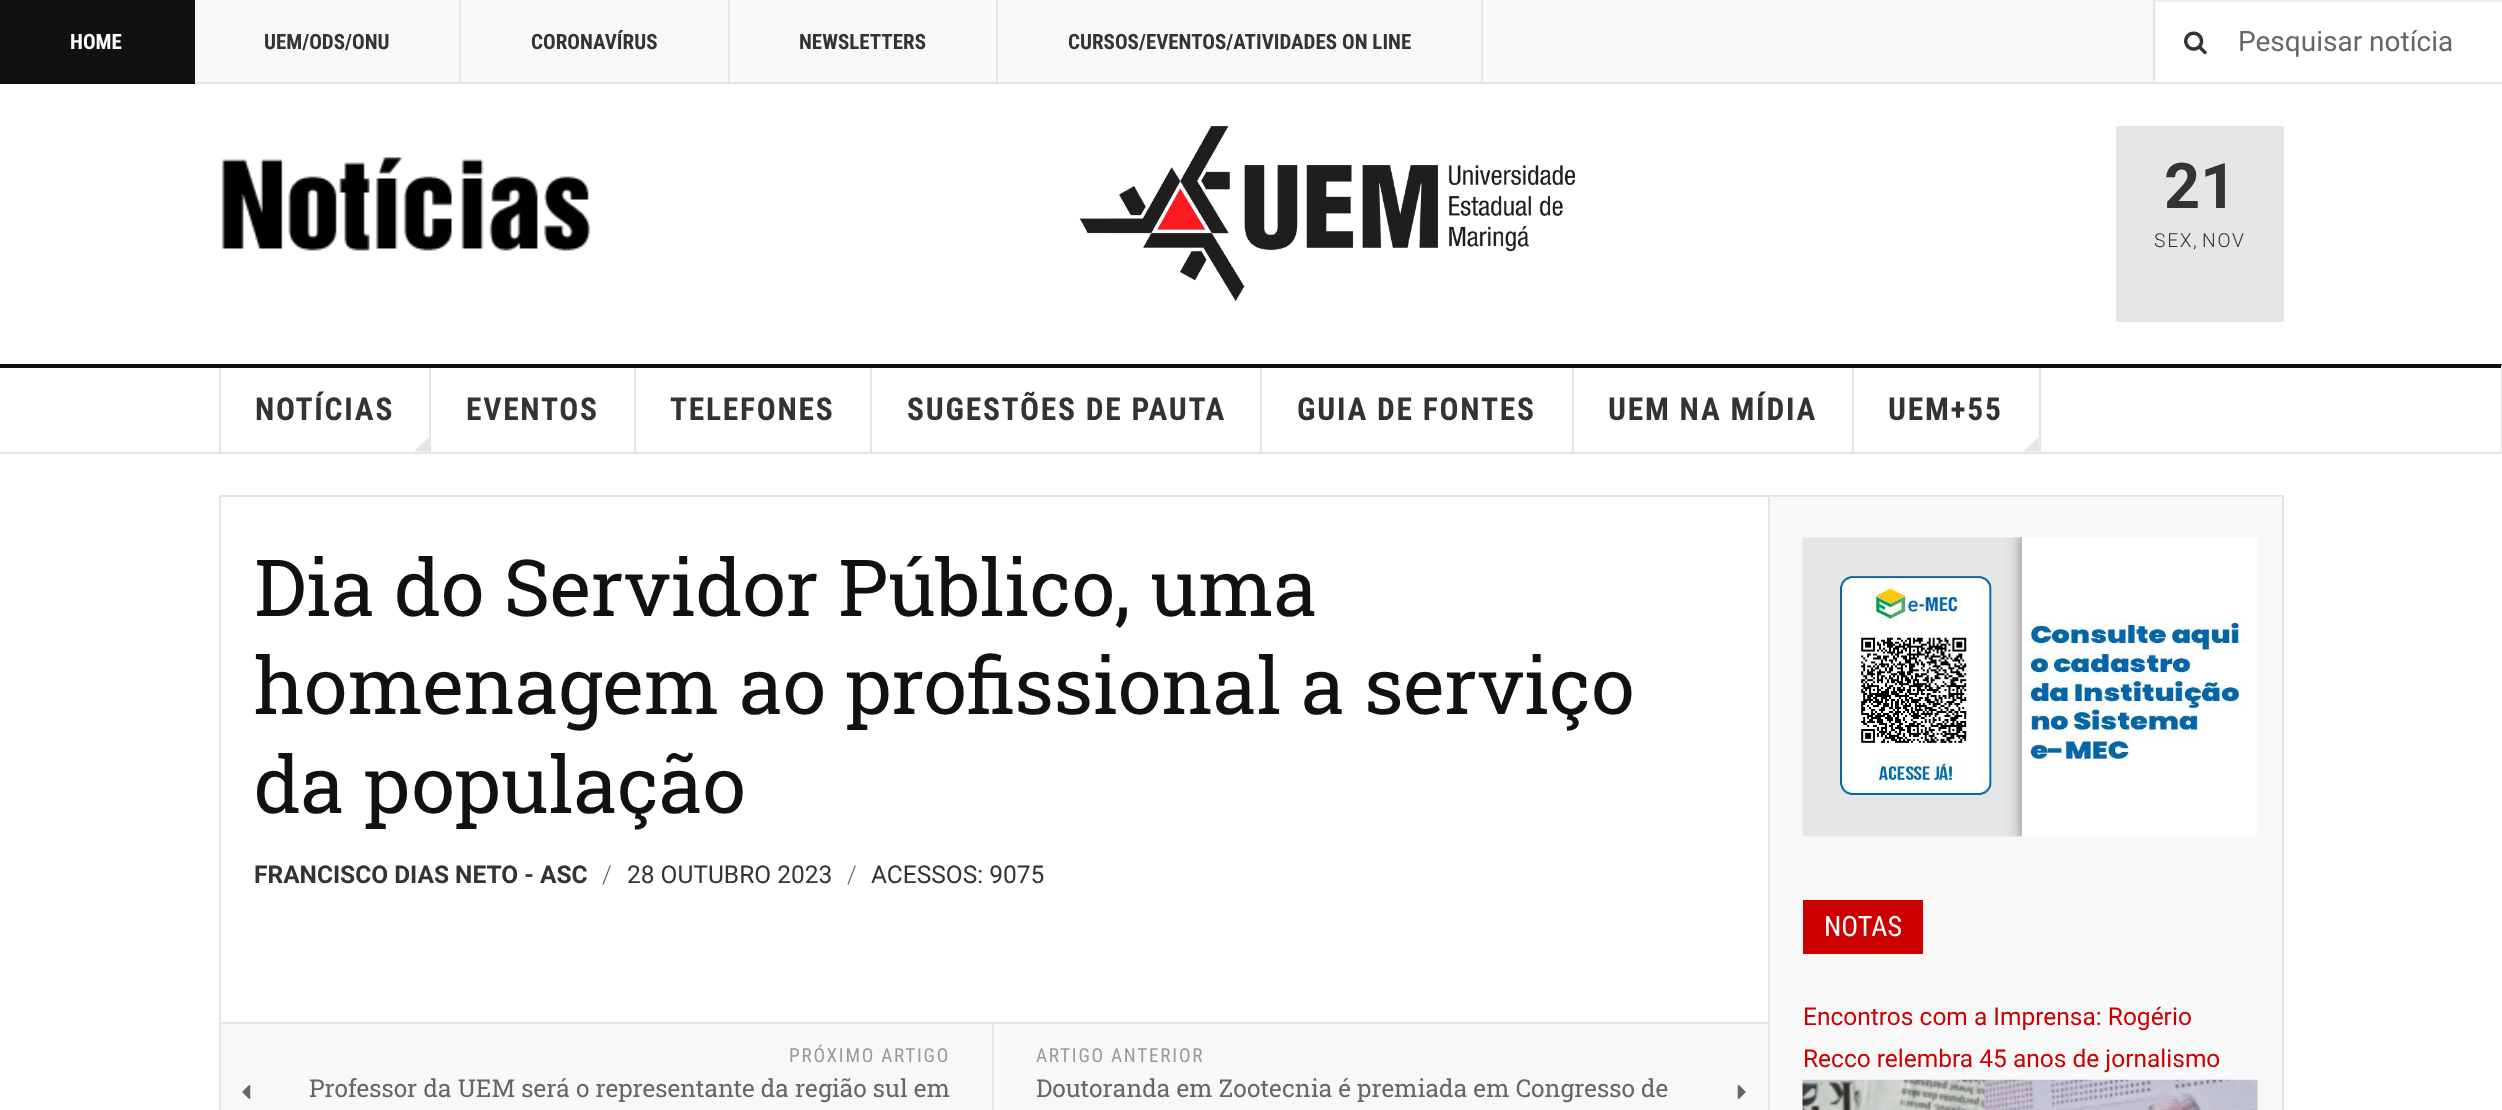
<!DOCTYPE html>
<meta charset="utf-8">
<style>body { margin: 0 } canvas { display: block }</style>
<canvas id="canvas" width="2502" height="1110"></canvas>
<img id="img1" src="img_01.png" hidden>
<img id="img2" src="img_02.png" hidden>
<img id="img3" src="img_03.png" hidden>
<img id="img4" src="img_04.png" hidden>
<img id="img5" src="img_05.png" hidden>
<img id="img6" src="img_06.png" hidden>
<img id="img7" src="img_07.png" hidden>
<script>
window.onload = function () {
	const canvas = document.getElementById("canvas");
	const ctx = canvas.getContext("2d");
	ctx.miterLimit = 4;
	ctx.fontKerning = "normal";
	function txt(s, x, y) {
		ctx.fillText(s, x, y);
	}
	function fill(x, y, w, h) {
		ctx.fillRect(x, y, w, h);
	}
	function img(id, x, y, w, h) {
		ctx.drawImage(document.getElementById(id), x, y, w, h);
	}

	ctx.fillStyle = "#FFFFFF";
	fill(0, 0, 2502, 1110);
	ctx.fillStyle = "#F8F8F8";
	fill(195, 0, 1958, 82);
	ctx.fillStyle = "#E5E5E5";
	fill(195, 82, 2307, 2);
	ctx.fillStyle = "#111111";
	fill(0, 0, 195, 84);
	ctx.fillStyle = "#E5E5E5";
	fill(459, 0, 2, 84);
	fill(728, 0, 2, 84);
	fill(996, 0, 2, 84);
	fill(1481, 0, 2, 84);
	img("img1", 2184, 31, 23, 24);
	ctx.fillStyle = "#ECECEC";
	fill(2154, 0, 348, 2);
	ctx.fillStyle = "#E5E5E5";
	fill(2153, 0, 2, 82);
	img("img2", 221, 157, 370, 94);
	img("img3", 1079, 126, 496, 175);
	fill(2116, 126, 168, 196);
	ctx.fillStyle = "#111111";
	ctx.beginPath();
	ctx.moveTo(0, 364);
	ctx.lineTo(2502, 364);
	ctx.lineTo(2501, 368);
	ctx.lineTo(0, 368);
	ctx.closePath();
	ctx.fill();
	ctx.fillStyle = "#E5E5E5";
	ctx.beginPath();
	ctx.moveTo(2502, 364);
	ctx.lineTo(2502, 453);
	ctx.lineTo(2501, 452);
	ctx.lineTo(2501, 368);
	ctx.closePath();
	ctx.fill();
	fill(0, 452, 2502, 2);
	fill(219, 368, 2, 84);
	fill(429, 368, 2, 84);
	ctx.beginPath();
	ctx.moveTo(414, 451.5);
	ctx.lineTo(429, 437);
	ctx.lineTo(429, 451.5);
	ctx.closePath();
	ctx.fill();
	fill(634, 368, 2, 84);
	fill(870, 368, 2, 84);
	fill(1260, 368, 2, 84);
	fill(1572, 368, 2, 84);
	fill(1852, 368, 2, 84);
	fill(2039, 368, 2, 84);
	ctx.beginPath();
	ctx.moveTo(2023.5, 451.5);
	ctx.lineTo(2038.5, 437);
	ctx.lineTo(2038.5, 451.5);
	ctx.closePath();
	ctx.fill();
	ctx.strokeStyle = "#E5E5E5";
	ctx.lineWidth = 2;
	ctx.strokeRect(220, 496, 2063, 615);
	fill(219, 1022, 1549, 2);
	fill(992, 1024, 2, 86);
	ctx.fillStyle = "#F8F8F8";
	fill(221, 1024, 771, 86);
	img("img4", 242, 1085, 9, 14);
	fill(994, 1024, 774, 86);
	img("img5", 1737, 1085, 9, 14);
	ctx.beginPath();
	ctx.rect(1769, 496, 514, 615);
	ctx.fill();
	ctx.stroke();
	img("img6", 1802, 537, 455, 300);
	ctx.fillStyle = "#CC0000";
	fill(1803, 900, 120, 54);
	img("img7", 1802, 1079, 456, 31);
	ctx.font = "bold 21px Roboto Condensed";
	ctx.fillStyle = "#FFFFFF";
	txt("HOME", 70, 49);
	ctx.fillStyle = "#333333";
	txt("UEM/ODS/ONU", 264, 49);
	txt("CORONAVÍRUS", 531, 49);
	txt("NEWSLETTERS", 799, 49);
	txt("CURSOS/EVENTOS/ATIVIDADES ON LINE", 1068, 49);
	ctx.font = "28px Roboto";
	ctx.fillStyle = "#666666";
	txt("Pesquisar notícia", 2238, 51);
	ctx.font = "bold 63px Roboto";
	ctx.fillStyle = "#333333";
	txt("21", 2164, 208);
	ctx.letterSpacing = "1.75px";
	ctx.font = "300 19.25px Roboto";
	txt("SEX", 2154, 247);
	ctx.letterSpacing = "0px";
	txt(",", 2193, 247);
	ctx.letterSpacing = "1.75px";
	txt("NOV", 2202, 247);
	ctx.font = "bold 31.5px Roboto Condensed";
	txt("NOTÍCIAS", 255, 420);
	txt("EVENTOS", 466, 420);
	txt("TELEFONES", 670, 420);
	txt("SUGESTÕES DE PAUTA", 907, 420);
	txt("GUIA DE FONTES", 1297, 420);
	txt("UEM NA MÍDIA", 1608, 420);
	txt("UEM+55", 1888, 420);
	ctx.letterSpacing = "0px";
	ctx.font = "78.75px Roboto Slab";
	ctx.fillStyle = "#111111";
	txt("Dia do Servidor Público, uma", 254, 616);
	txt("homenagem ao profissional a serviço", 254, 714);
	txt("da população", 254, 813);
	ctx.font = "bold 24.5px Roboto";
	ctx.fillStyle = "#333333";
	txt("FRANCISCO DIAS NETO - ASC", 254, 883);
	ctx.font = "300 24.5px Roboto";
	ctx.fillStyle = "#666666";
	txt("/", 602, 883);
	ctx.font = "24.5px Roboto";
	ctx.fillStyle = "#333333";
	txt("28 OUTUBRO 2023", 627, 883);
	ctx.font = "300 24.5px Roboto";
	ctx.fillStyle = "#666666";
	txt("/", 847, 883);
	ctx.font = "24.5px Roboto";
	ctx.fillStyle = "#333333";
	txt("ACESSOS: 9075", 871, 883);
	ctx.letterSpacing = "1.75px";
	ctx.font = "19.25px Roboto Condensed";
	ctx.fillStyle = "#999999";
	txt("PRÓXIMO ARTIGO", 789, 1062);
	ctx.letterSpacing = "0px";
	ctx.font = "24.5px Roboto Slab";
	ctx.fillStyle = "#666666";
	txt("Professor da UEM será o representante da região sul em", 309, 1097);
	ctx.letterSpacing = "1.75px";
	ctx.font = "19.25px Roboto Condensed";
	ctx.fillStyle = "#999999";
	txt("ARTIGO ANTERIOR", 1036, 1062);
	ctx.letterSpacing = "0px";
	ctx.font = "24.5px Roboto Slab";
	ctx.fillStyle = "#666666";
	txt("Doutoranda em Zootecnia é premiada em Congresso de", 1036, 1097);
	ctx.font = "28px Roboto Condensed";
	ctx.fillStyle = "#FFFFFF";
	txt("NOTAS", 1824, 936);
	ctx.font = "24.5px Roboto";
	ctx.fillStyle = "#CC0000";
	txt("Encontros com a Imprensa: Rogério", 1803, 1025);
	txt("Recco relembra 45 anos de jornalismo", 1803, 1067);
};
</script>
